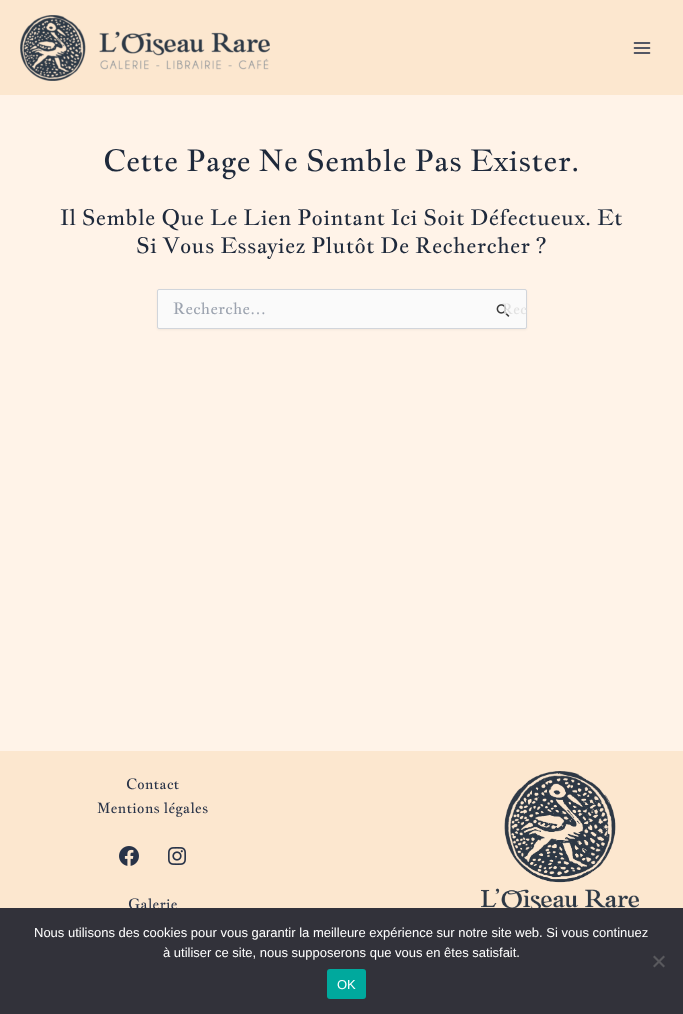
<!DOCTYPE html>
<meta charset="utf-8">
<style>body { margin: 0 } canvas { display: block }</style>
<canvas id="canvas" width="683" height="1014"></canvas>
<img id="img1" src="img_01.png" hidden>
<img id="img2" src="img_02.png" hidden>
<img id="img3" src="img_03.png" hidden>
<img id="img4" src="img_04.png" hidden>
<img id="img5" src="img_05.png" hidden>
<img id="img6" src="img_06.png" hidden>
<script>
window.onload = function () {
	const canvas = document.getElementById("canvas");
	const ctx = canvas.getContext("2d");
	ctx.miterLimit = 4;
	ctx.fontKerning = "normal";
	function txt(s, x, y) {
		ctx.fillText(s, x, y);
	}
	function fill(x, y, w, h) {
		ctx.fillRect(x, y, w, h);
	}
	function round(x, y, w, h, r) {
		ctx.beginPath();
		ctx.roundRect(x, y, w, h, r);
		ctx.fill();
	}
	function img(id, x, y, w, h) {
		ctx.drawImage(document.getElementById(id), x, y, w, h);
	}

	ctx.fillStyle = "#FFF3E8";
	fill(0, 0, 683, 1014);
	ctx.fillStyle = "#FCE7CF";
	fill(0, 0, 683, 95);
	img("img1", 20, 15, 250, 66);
	img("img2", 633, 42, 18, 12);
	ctx.fillStyle = "rgba(0, 0, 0, 0.05)";
	ctx.filter = "blur(1px)";
	ctx.beginPath();
	ctx.roundRect(157, 290, 370, 40, 2);
	ctx.fill();
	ctx.filter = "none";
	ctx.fillStyle = "#FAFAFA";
	ctx.beginPath();
	ctx.roundRect(157.5, 289.5, 369, 39, 1.5);
	ctx.fill();
	ctx.strokeStyle = "#D1D5DB";
	ctx.stroke();
	img("img3", 496, 304, 14, 13);
	ctx.fillStyle = "#FCE7CF";
	fill(0, 751, 683, 157);
	img("img4", 119, 846, 20, 20);
	img("img5", 168, 847, 18, 18);
	img("img6", 481, 771, 158, 137);
	ctx.font = "30px Jacques Francois";
	ctx.fillStyle = "#1E293B";
	txt("Cette Page Ne Semble Pas Exister.", 103, 171);
	ctx.font = "21.9px Jacques Francois";
	txt("Il Semble Que Le Lien Pointant Ici Soit Défectueux. Et", 60, 225);
	txt("Si Vous Essayiez Plutôt De Rechercher ?", 136, 253);
	ctx.font = "16px Jacques Francois";
	ctx.fillStyle = "#9CA3AF";
	txt("Recherche", 173, 314);
	ctx.font = "16px Liberation Serif";
	txt("…", 250, 314);
	ctx.font = "14.5px Jacques Francois";
	ctx.fillStyle = "#E1E1E1";
	txt("Rec", 502, 314);
	ctx.fillStyle = "#283348";
	txt("Contact", 126, 789);
	txt("Mentions légales", 97, 813);
	txt("Galerie", 128, 909);
	ctx.fillStyle = "#32323A";
	fill(0, 908, 683, 106);
	ctx.font = "13px Liberation Sans";
	ctx.fillStyle = "#FFFFFF";
	txt("Nous utilisons des cookies pour vous garantir la meilleure expérience sur notre site web. Si vous continuez", 34, 937);
	txt("à utiliser ce site, nous supposerons que vous en êtes satisfait.", 163, 957);
	ctx.fillStyle = "#59595D";
	ctx.beginPath();
	ctx.moveTo(663.5, 955.5);
	ctx.lineTo(665, 957);
	ctx.lineTo(654.5, 967.5);
	ctx.lineTo(653, 966);
	ctx.closePath();
	ctx.fill();
	ctx.beginPath();
	ctx.moveTo(653, 957);
	ctx.lineTo(654.5, 955.5);
	ctx.lineTo(665, 966);
	ctx.lineTo(663.5, 967.5);
	ctx.closePath();
	ctx.fill();
	ctx.fillStyle = "#00A99D";
	round(327, 969, 39, 30, 3);
	ctx.fillStyle = "#FFFFFF";
	txt("OK", 337, 989);
};
</script>
